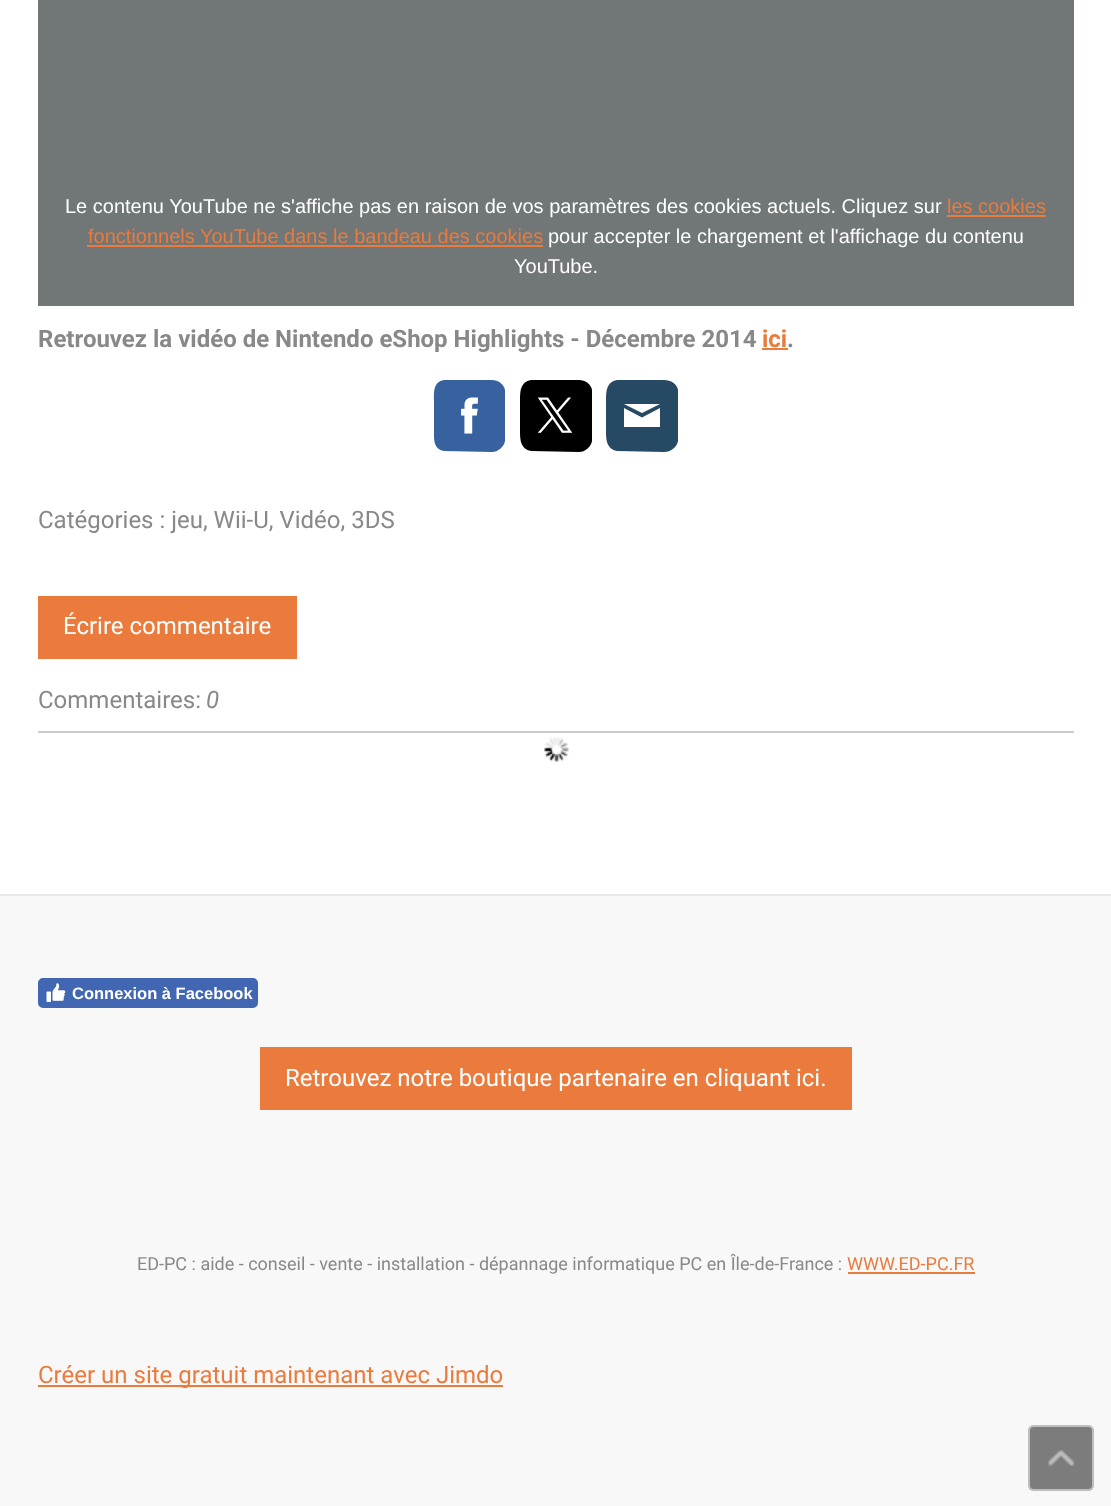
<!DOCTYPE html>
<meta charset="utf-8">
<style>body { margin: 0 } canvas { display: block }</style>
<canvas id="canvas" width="1111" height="1506"></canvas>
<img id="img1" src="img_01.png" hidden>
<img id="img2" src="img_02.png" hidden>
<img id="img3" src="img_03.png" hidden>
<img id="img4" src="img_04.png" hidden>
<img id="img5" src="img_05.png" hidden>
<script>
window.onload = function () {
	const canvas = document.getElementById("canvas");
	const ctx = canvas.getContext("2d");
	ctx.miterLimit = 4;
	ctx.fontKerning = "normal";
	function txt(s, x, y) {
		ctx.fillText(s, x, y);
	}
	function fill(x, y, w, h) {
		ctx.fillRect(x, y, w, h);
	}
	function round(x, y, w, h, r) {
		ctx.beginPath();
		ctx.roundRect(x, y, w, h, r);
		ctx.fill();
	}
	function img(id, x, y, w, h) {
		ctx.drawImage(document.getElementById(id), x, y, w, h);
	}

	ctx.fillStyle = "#F8F8F8";
	fill(0, 0, 1111, 1506);
	ctx.fillStyle = "#FFFFFF";
	fill(0, 0, 1111, 894);
	ctx.fillStyle = "#717677";
	fill(38, 0, 1036, 306);
	ctx.fillStyle = "#EA7B3C";
	fill(947, 215, 99, 2);
	fill(87, 245, 456, 2);
	fill(762, 348, 26, 2);
	ctx.fillStyle = "#38619F";
	ctx.beginPath();
	ctx.moveTo(492, 452);
	ctx.lineTo(444, 451);
	ctx.bezierCurveTo(433, 449, 434, 439, 434, 430);
	ctx.lineTo(434, 401);
	ctx.bezierCurveTo(434, 392, 433, 382, 444, 380);
	ctx.lineTo(492, 380);
	ctx.bezierCurveTo(498, 380, 504, 384, 505, 390);
	ctx.lineTo(505, 441);
	ctx.bezierCurveTo(504, 447, 498, 452, 492, 452);
	ctx.closePath();
	ctx.fill();
	img("img1", 461, 397, 17, 37);
	ctx.fillStyle = "#000000";
	ctx.beginPath();
	ctx.moveTo(579, 452);
	ctx.lineTo(531, 451);
	ctx.bezierCurveTo(520, 449, 520, 439, 520, 430);
	ctx.lineTo(520, 401);
	ctx.bezierCurveTo(520, 392, 520, 382, 531, 380);
	ctx.lineTo(579, 380);
	ctx.bezierCurveTo(585, 380, 591, 384, 592, 390);
	ctx.lineTo(592, 441);
	ctx.bezierCurveTo(591, 447, 585, 452, 579, 452);
	ctx.closePath();
	ctx.fill();
	img("img2", 537, 397, 36, 36);
	ctx.fillStyle = "#264A64";
	ctx.beginPath();
	ctx.moveTo(664, 452);
	ctx.lineTo(617, 451);
	ctx.bezierCurveTo(606, 449, 606, 439, 606, 430);
	ctx.lineTo(606, 401);
	ctx.bezierCurveTo(606, 392, 606, 382, 617, 380);
	ctx.lineTo(664, 380);
	ctx.bezierCurveTo(671, 380, 677, 384, 678, 390);
	ctx.lineTo(678, 441);
	ctx.bezierCurveTo(677, 447, 671, 452, 664, 452);
	ctx.closePath();
	ctx.fill();
	ctx.fillStyle = "#FFFFFF";
	ctx.beginPath();
	ctx.moveTo(660, 427);
	ctx.lineTo(624, 427);
	ctx.lineTo(624, 408);
	ctx.lineTo(642, 417.5);
	ctx.lineTo(660, 408);
	ctx.closePath();
	ctx.moveTo(660, 404);
	ctx.lineTo(624, 404);
	ctx.lineTo(642, 413);
	ctx.closePath();
	ctx.fill();
	ctx.fillStyle = "#EA7B3C";
	fill(38, 596, 259, 63);
	img("img3", 544, 737, 25, 25);
	ctx.fillStyle = "#CCCCCC";
	fill(38, 731, 1036, 2);
	ctx.fillStyle = "#E8E8E8";
	fill(0, 894, 1111, 2);
	ctx.fillStyle = "#4267B2";
	ctx.beginPath();
	ctx.roundRect(39, 979, 218, 28, 4);
	ctx.fill();
	ctx.strokeStyle = "#4267B2";
	ctx.lineWidth = 2;
	ctx.stroke();
	img("img4", 46, 983, 20, 19);
	ctx.fillStyle = "#EA7B3C";
	fill(260, 1047, 592, 63);
	fill(848, 1272, 127, 2);
	fill(38, 1385, 465, 2);
	ctx.fillStyle = "#7C7C7C";
	round(1028, 1425, 66, 66, 6);
	ctx.beginPath();
	ctx.roundRect(1029, 1426, 64, 64, 5);
	ctx.strokeStyle = "rgba(255, 255, 255, 0.5)";
	ctx.stroke();
	img("img5", 1048, 1450, 27, 17);
	ctx.font = "20px Liberation Sans";
	ctx.fillStyle = "#FFFFFF";
	txt("Le contenu YouTube ne s'affiche pas en raison de vos paramètres des cookies actuels. Cliquez sur", 65, 213);
	ctx.fillStyle = "#EA7B3C";
	txt("les cookies", 947, 213);
	txt("fonctionnels YouTube dans le bandeau des cookies", 88, 243);
	ctx.fillStyle = "#FFFFFF";
	txt("pour accepter le chargement et l'affichage du contenu", 548, 243);
	txt("YouTube.", 514, 273);
	ctx.font = "bold 24px Roboto";
	ctx.fillStyle = "#888888";
	txt("Retrouvez la vidéo de Nintendo eShop Highlights - Décembre 2014", 38, 347);
	ctx.fillStyle = "#EA7B3C";
	txt("ici", 762, 347);
	ctx.fillStyle = "#888888";
	txt(".", 787, 347);
	ctx.font = "24px Roboto";
	txt("Catégories : jeu, Wii-U, Vidéo, 3DS", 38, 528);
	ctx.fillStyle = "#FFFFFF";
	txt("Écrire commentaire", 63, 634);
	ctx.fillStyle = "#888888";
	txt("Commentaires:", 38, 708);
	ctx.font = "italic 24px Roboto";
	txt("0", 206, 708);
	ctx.font = "bold 16.5px Liberation Sans";
	ctx.fillStyle = "#FFFFFF";
	txt("Connexion à Facebook", 72, 999);
	ctx.font = "24px Roboto";
	txt("Retrouvez notre boutique partenaire en cliquant ici.", 285, 1086);
	ctx.font = "18px Roboto";
	ctx.fillStyle = "#888888";
	txt("ED-PC : aide - conseil - vente - installation - dépannage informatique PC en Île-de-France :", 137, 1270);
	ctx.fillStyle = "#EA7B3C";
	txt("WWW.ED-PC.FR", 847, 1270);
	ctx.font = "24px Roboto";
	txt("Créer un site gratuit maintenant avec Jimdo", 38, 1383);
};
</script>
